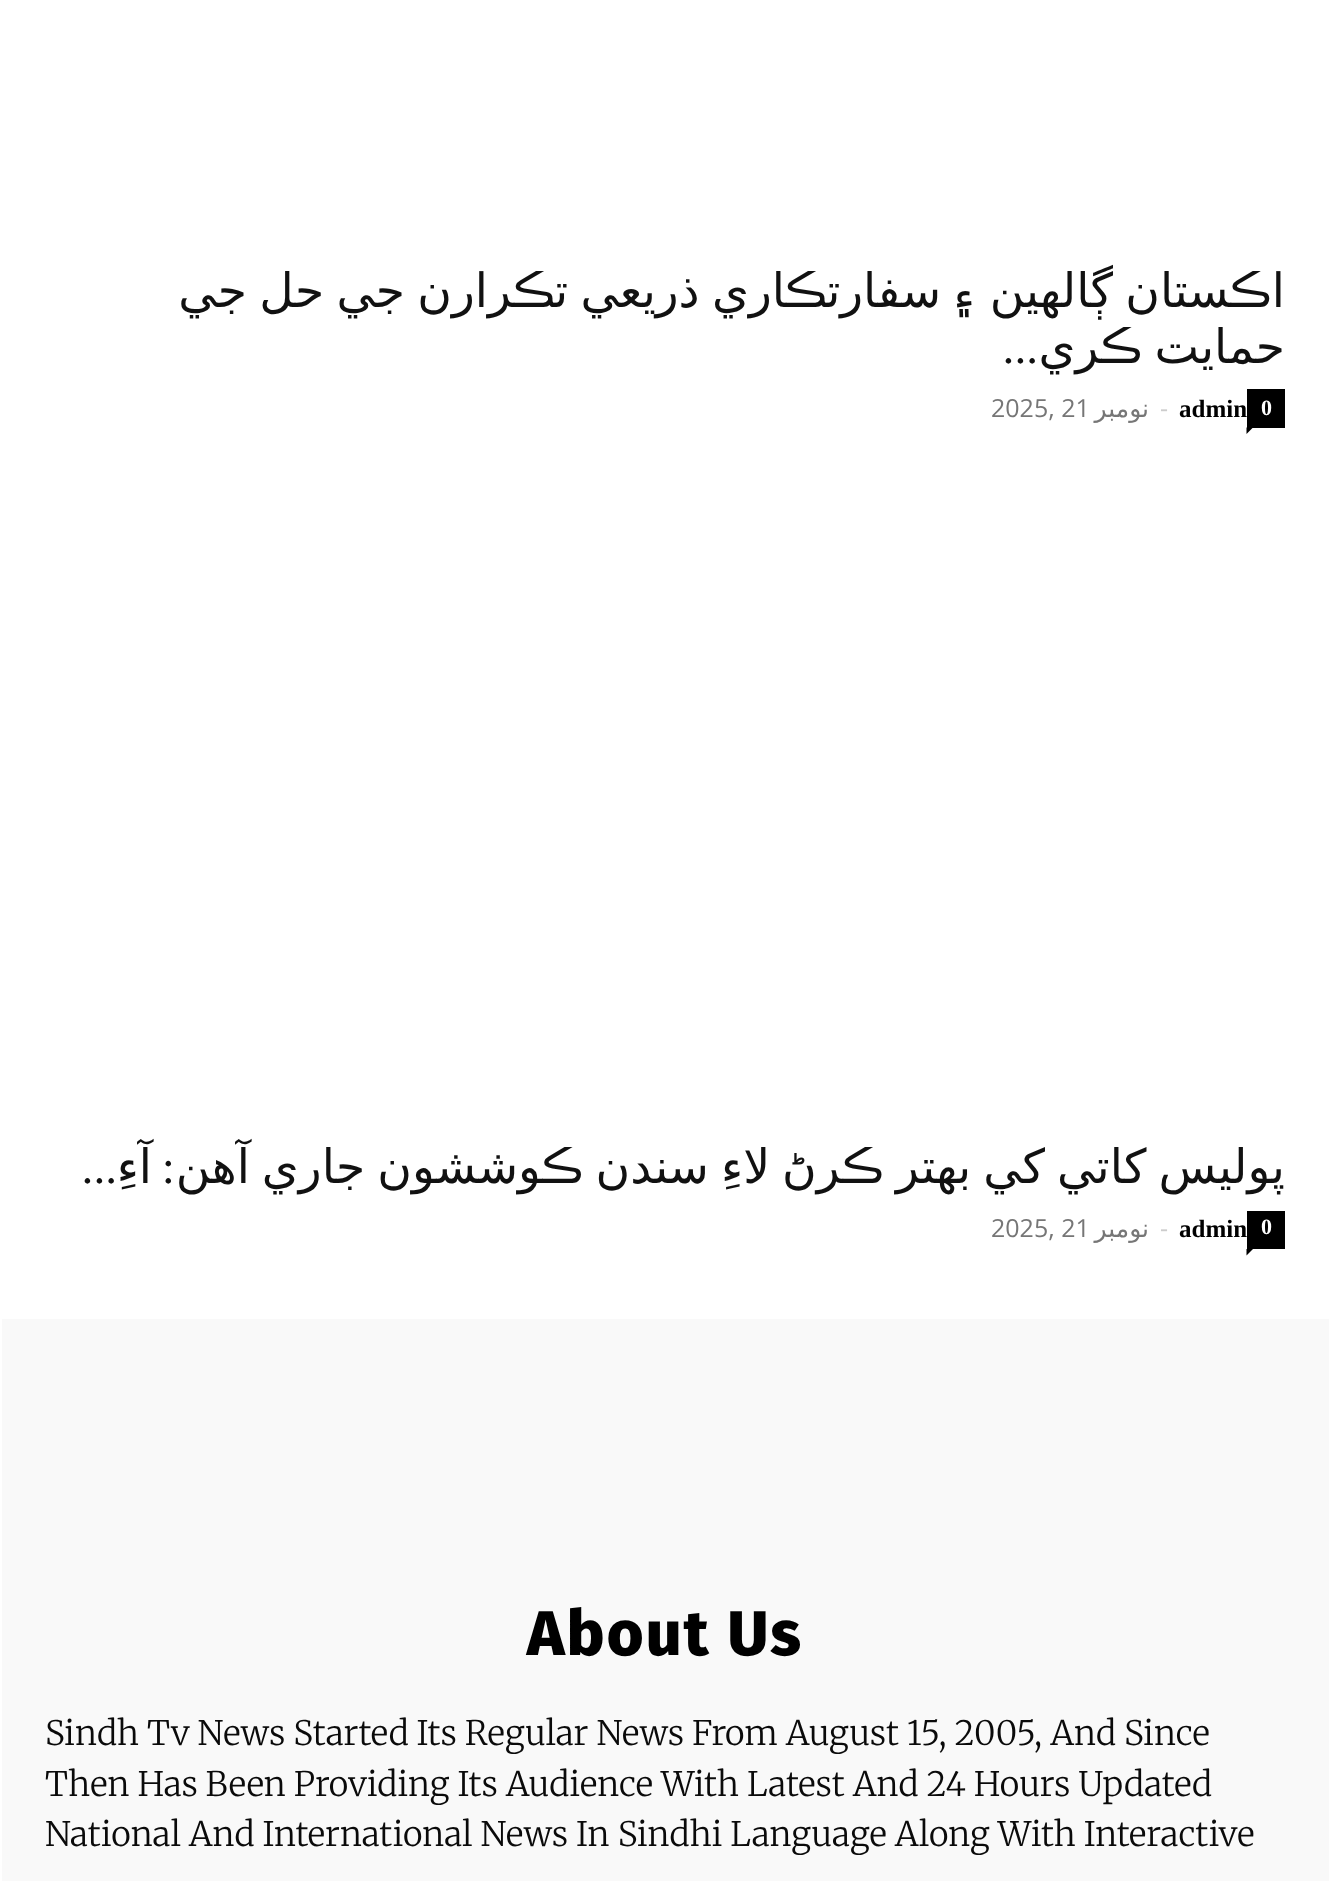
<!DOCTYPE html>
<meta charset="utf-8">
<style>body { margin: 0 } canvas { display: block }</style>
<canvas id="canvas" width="1329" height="1881"></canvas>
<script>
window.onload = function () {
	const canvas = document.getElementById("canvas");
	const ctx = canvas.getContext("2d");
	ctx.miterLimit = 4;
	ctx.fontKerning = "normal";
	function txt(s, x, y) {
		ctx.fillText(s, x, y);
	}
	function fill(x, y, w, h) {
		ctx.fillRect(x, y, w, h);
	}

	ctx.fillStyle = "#FFFFFF";
	fill(0, 0, 1329, 1881);
	ctx.fillStyle = "#000000";
	fill(1247, 389, 38, 39);
	ctx.beginPath();
	ctx.moveTo(1246.5, 427.5);
	ctx.lineTo(1253, 427.5);
	ctx.lineTo(1246.5, 434);
	ctx.closePath();
	ctx.fill();
	fill(1247, 1211, 38, 38);
	ctx.beginPath();
	ctx.moveTo(1246.5, 1249);
	ctx.lineTo(1253, 1249);
	ctx.lineTo(1246.5, 1255.5);
	ctx.closePath();
	ctx.fill();
	ctx.fillStyle = "#F9F9F9";
	fill(2, 1319, 1327, 562);
	ctx.wordSpacing = "-2.75px";
	ctx.direction = "rtl";
	ctx.font = "47.25px DejaVu Sans";
	ctx.fillStyle = "#111111";
	txt("سفارتڪاري ذريعي تڪرارن جي حل جي", 941, 307);
	ctx.wordSpacing = "0px";
	ctx.font = "47.25px Cascadia Code";
	txt("۽", 977, 307);
	ctx.wordSpacing = "-2.75px";
	ctx.font = "47.25px DejaVu Sans";
	txt("اڪستان ڳالهين", 1285, 307);
	ctx.wordSpacing = "0px";
	ctx.font = "47.25px Liberation Serif";
	txt("...", 1038, 363);
	ctx.wordSpacing = "-3px";
	ctx.font = "47.25px DejaVu Sans";
	txt("حمايت ڪري", 1285, 363);
	ctx.wordSpacing = "0px";
	ctx.direction = "ltr";
	ctx.font = "25px Open Sans";
	ctx.fillStyle = "#767676";
	txt("2025, 21", 991, 417);
	ctx.direction = "rtl";
	ctx.font = "25px DejaVu Sans";
	txt("نومبر", 1149, 417);
	ctx.direction = "ltr";
	ctx.font = "25px Open Sans";
	ctx.fillStyle = "#CCCCCC";
	txt("-", 1160, 417);
	ctx.font = "bold 25px Liberation Serif";
	ctx.fillStyle = "#000000";
	txt("admin", 1179, 417);
	ctx.font = "bold 22px Liberation Serif";
	ctx.fillStyle = "#FFFFFF";
	txt("0", 1261, 415);
	ctx.direction = "rtl";
	ctx.font = "47.25px Liberation Serif";
	ctx.fillStyle = "#111111";
	txt("...", 117, 1183);
	ctx.font = "47.25px DejaVu Sans";
	txt("آءِ", 152, 1183);
	ctx.font = "47.25px Liberation Serif";
	txt(":", 175, 1183);
	ctx.wordSpacing = "-3px";
	ctx.font = "47.25px DejaVu Sans";
	txt("پوليس کاتي کي بهتر ڪرڻ لاءِ سندن ڪوششون جاري آهن", 1285, 1183);
	ctx.wordSpacing = "0px";
	ctx.direction = "ltr";
	ctx.font = "25px Open Sans";
	ctx.fillStyle = "#767676";
	txt("2025, 21", 991, 1237);
	ctx.direction = "rtl";
	ctx.font = "25px DejaVu Sans";
	txt("نومبر", 1149, 1237);
	ctx.direction = "ltr";
	ctx.font = "25px Open Sans";
	ctx.fillStyle = "#CCCCCC";
	txt("-", 1160, 1237);
	ctx.font = "bold 25px Liberation Serif";
	ctx.fillStyle = "#000000";
	txt("admin", 1179, 1237);
	ctx.font = "bold 22px Liberation Serif";
	ctx.fillStyle = "#FFFFFF";
	txt("0", 1261, 1234);
	ctx.letterSpacing = "2.25px";
	ctx.font = "800 63px Fira Sans";
	ctx.fillStyle = "#000000";
	txt("About Us", 527, 1655);
	ctx.letterSpacing = "0px";
	ctx.font = "300 33.75px Merriweather";
	ctx.fillStyle = "#0A0A0A";
	txt("Sindh Tv News Started Its Regular News From August 15, 2005, And Since", 45, 1745);
	txt("Then Has Been Providing Its Audience With Latest And 24 Hours Updated", 45, 1796);
	txt("National And International News In Sindhi Language Along With Interactive", 45, 1846);
};
</script>
